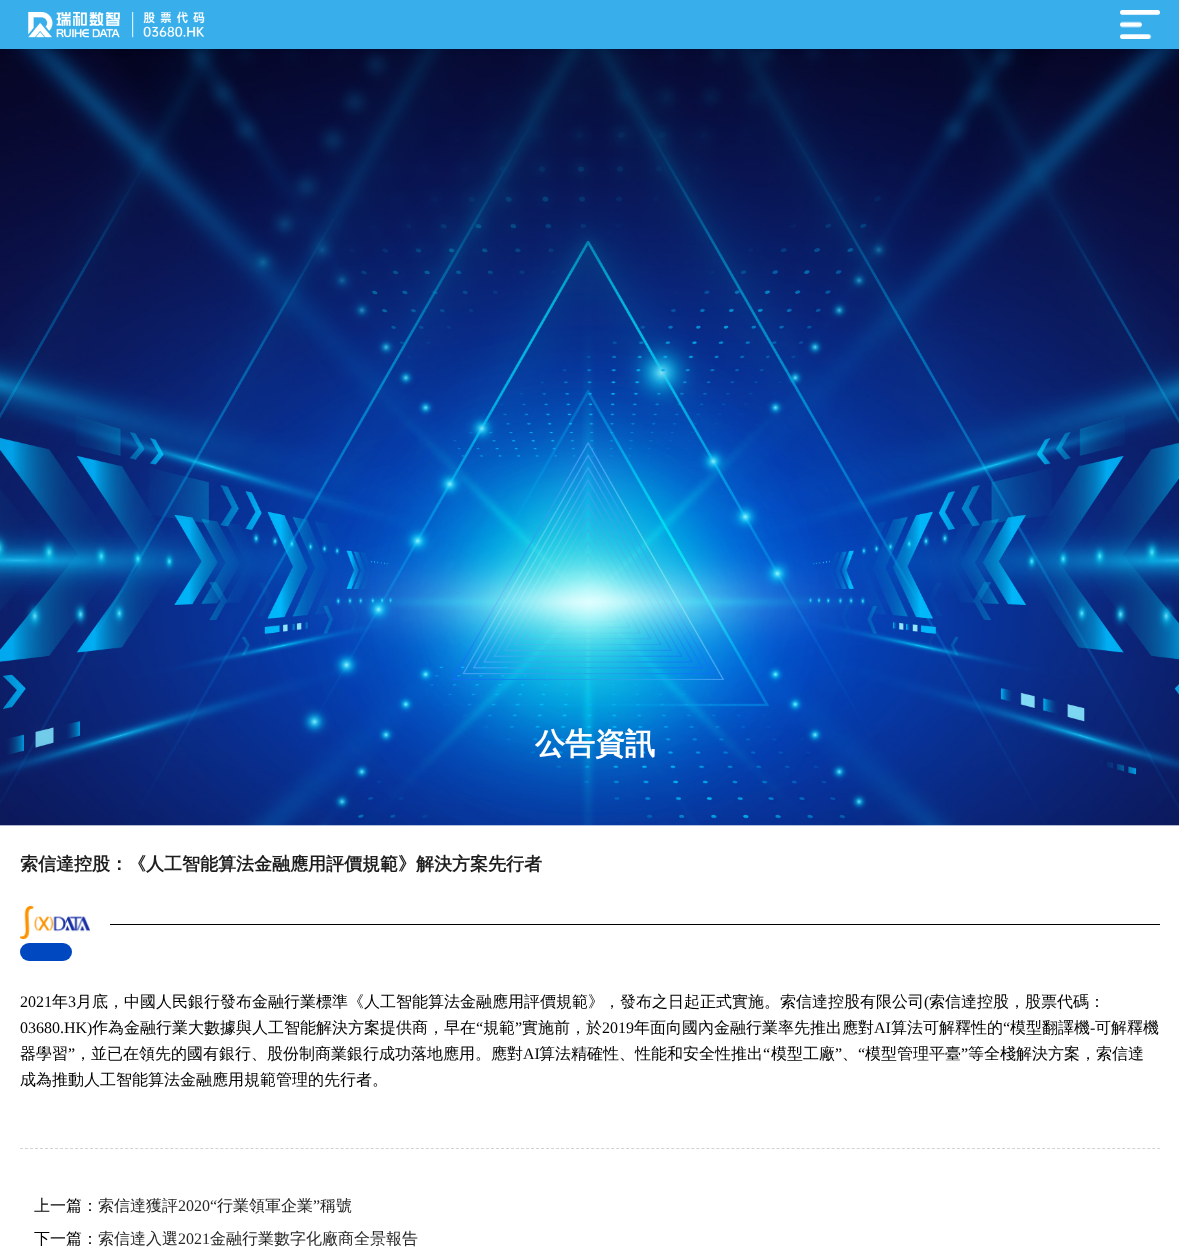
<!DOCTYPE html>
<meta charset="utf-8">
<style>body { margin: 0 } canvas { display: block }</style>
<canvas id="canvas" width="1179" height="1252"></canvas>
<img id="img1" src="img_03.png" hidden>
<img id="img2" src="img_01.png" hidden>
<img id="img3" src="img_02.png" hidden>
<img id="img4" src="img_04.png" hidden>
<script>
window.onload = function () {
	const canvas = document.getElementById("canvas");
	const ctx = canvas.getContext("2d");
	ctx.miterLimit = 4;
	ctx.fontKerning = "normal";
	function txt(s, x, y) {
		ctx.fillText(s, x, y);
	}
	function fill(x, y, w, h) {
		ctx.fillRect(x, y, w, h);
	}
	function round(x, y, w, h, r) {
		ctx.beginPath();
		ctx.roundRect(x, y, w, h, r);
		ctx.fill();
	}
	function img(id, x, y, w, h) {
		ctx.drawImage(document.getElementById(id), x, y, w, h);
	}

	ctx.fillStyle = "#FFFFFF";
	fill(0, 0, 1179, 1252);
	img("img1", 0, 49, 1179, 777);
	ctx.fillStyle = "rgba(0, 0, 0, 0.07)";
	ctx.filter = "blur(2px)";
	ctx.beginPath();
	ctx.rect(0, 2, 1179, 49);
	ctx.fill();
	ctx.filter = "none";
	ctx.fillStyle = "#38AFEB";
	fill(0, 0, 1179, 49);
	img("img2", 28, 11, 177, 27);
	img("img3", 1120, 10, 40, 29);
	img("img4", 20, 906, 70, 33);
	ctx.fillStyle = "#000000";
	fill(110, 924, 1050, 1);
	ctx.fillStyle = "#0048BF";
	round(20, 943, 52, 18, 9);
	ctx.beginPath();
	ctx.moveTo(20, 1148.5);
	ctx.lineTo(1160, 1148.5);
	ctx.strokeStyle = "#D2D2D2";
	ctx.setLineDash([3, 2.01]);
	ctx.stroke();
	ctx.font = "bold 30px WenQuanYi Zen Hei";
	ctx.fillStyle = "#FFFFFF";
	txt("公告資訊", 535, 754);
	ctx.font = "bold 18px WenQuanYi Zen Hei";
	ctx.fillStyle = "#1E1E1E";
	txt("索信達控股：《人工智能算法金融應用評價規範》解決方案先行者", 20, 870);
	ctx.font = "16px Liberation Serif";
	ctx.fillStyle = "#000000";
	txt("2021", 20, 1007);
	ctx.font = "500 16px WenQuanYi Zen Hei";
	txt("年", 52, 1007);
	ctx.font = "16px Liberation Serif";
	txt("3", 68, 1007);
	ctx.font = "500 16px WenQuanYi Zen Hei";
	txt("月底，中國人民銀行發布金融行業標準《人工智能算法金融應用評價規範》，發布之日起正式實施。索信達控股有限公司", 76, 1007);
	ctx.font = "16px Liberation Serif";
	txt("(", 924, 1007);
	ctx.font = "500 16px WenQuanYi Zen Hei";
	txt("索信達控股，股票代碼：", 929, 1007);
	ctx.font = "16px Liberation Serif";
	txt("03680.HK)", 20, 1033);
	ctx.font = "500 16px WenQuanYi Zen Hei";
	txt("作為金融行業大數據與人工智能解決方案提供商，早在", 92, 1033);
	ctx.font = "16px Liberation Serif";
	txt("“", 476, 1033);
	ctx.font = "500 16px WenQuanYi Zen Hei";
	txt("規範", 483, 1033);
	ctx.font = "16px Liberation Serif";
	txt("”", 515, 1033);
	ctx.font = "500 16px WenQuanYi Zen Hei";
	txt("實施前，於", 522, 1033);
	ctx.font = "16px Liberation Serif";
	txt("2019", 602, 1033);
	ctx.font = "500 16px WenQuanYi Zen Hei";
	txt("年面向國內金融行業率先推出應對", 634, 1033);
	ctx.font = "16px Liberation Serif";
	txt("AI", 874, 1033);
	ctx.font = "500 16px WenQuanYi Zen Hei";
	txt("算法可解釋性的", 891, 1033);
	ctx.font = "16px Liberation Serif";
	txt("“", 1003, 1033);
	ctx.font = "500 16px WenQuanYi Zen Hei";
	txt("模型翻譯機", 1010, 1033);
	txt("可解釋機", 1095, 1033);
	ctx.font = "16px Liberation Serif";
	txt("-", 1090, 1033);
	ctx.font = "500 16px WenQuanYi Zen Hei";
	txt("器學習", 20, 1059);
	ctx.font = "16px Liberation Serif";
	txt("”", 68, 1059);
	ctx.font = "500 16px WenQuanYi Zen Hei";
	txt("，並已在領先的國有銀行、股份制商業銀行成功落地應用。應對", 75, 1059);
	ctx.font = "16px Liberation Serif";
	txt("AI", 523, 1059);
	ctx.font = "500 16px WenQuanYi Zen Hei";
	txt("算法精確性、性能和安全性推出", 539, 1059);
	ctx.font = "16px Liberation Serif";
	txt("“", 763, 1059);
	ctx.font = "500 16px WenQuanYi Zen Hei";
	txt("模型工廠", 771, 1059);
	ctx.font = "16px Liberation Serif";
	txt("”", 835, 1059);
	txt("“", 858, 1059);
	ctx.font = "500 16px WenQuanYi Zen Hei";
	txt("模型管理平臺", 865, 1059);
	ctx.font = "16px Liberation Serif";
	txt("”", 961, 1059);
	ctx.font = "500 16px WenQuanYi Zen Hei";
	txt("等全棧解決方案，索信達", 968, 1059);
	txt("、", 842, 1059);
	txt("成為推動人工智能算法金融應用規範管理的先行者。", 20, 1085);
	txt("上一篇：", 34, 1211);
	ctx.fillStyle = "#262626";
	txt("索信達獲評", 98, 1211);
	ctx.font = "16px Liberation Serif";
	txt("2020“", 178, 1211);
	ctx.font = "500 16px WenQuanYi Zen Hei";
	txt("行業領軍企業", 217, 1211);
	ctx.font = "16px Liberation Serif";
	txt("”", 313, 1211);
	ctx.font = "500 16px WenQuanYi Zen Hei";
	txt("稱號", 320, 1211);
	ctx.fillStyle = "#000000";
	txt("下一篇：", 34, 1244);
	ctx.fillStyle = "#262626";
	txt("索信達入選", 98, 1244);
	ctx.font = "16px Liberation Serif";
	txt("2021", 178, 1244);
	ctx.font = "500 16px WenQuanYi Zen Hei";
	txt("金融行業數字化廠商全景報告", 210, 1244);
};
</script>
